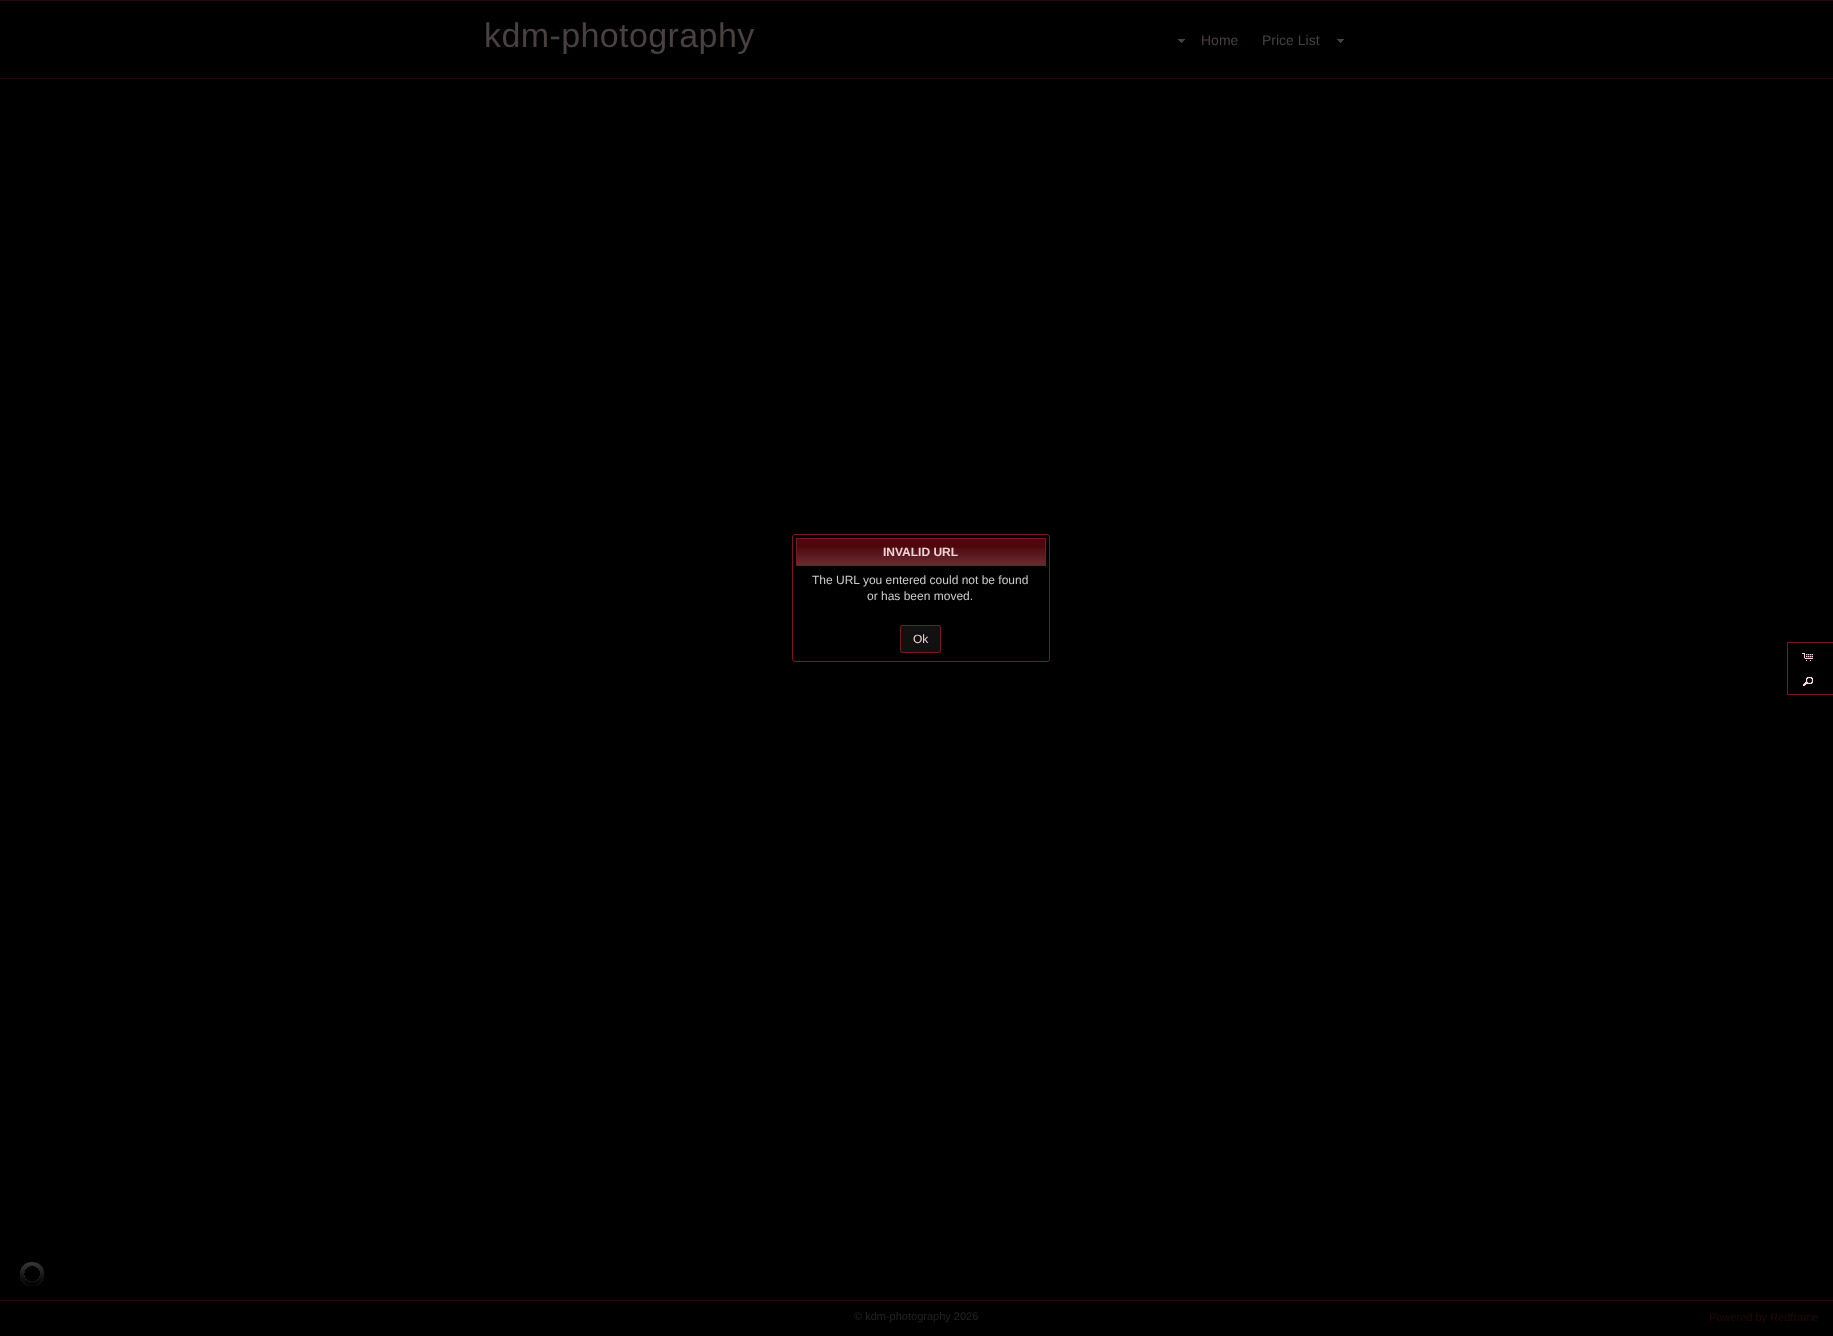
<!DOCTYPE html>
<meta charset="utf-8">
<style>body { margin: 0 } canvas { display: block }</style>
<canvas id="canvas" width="1833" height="1336"></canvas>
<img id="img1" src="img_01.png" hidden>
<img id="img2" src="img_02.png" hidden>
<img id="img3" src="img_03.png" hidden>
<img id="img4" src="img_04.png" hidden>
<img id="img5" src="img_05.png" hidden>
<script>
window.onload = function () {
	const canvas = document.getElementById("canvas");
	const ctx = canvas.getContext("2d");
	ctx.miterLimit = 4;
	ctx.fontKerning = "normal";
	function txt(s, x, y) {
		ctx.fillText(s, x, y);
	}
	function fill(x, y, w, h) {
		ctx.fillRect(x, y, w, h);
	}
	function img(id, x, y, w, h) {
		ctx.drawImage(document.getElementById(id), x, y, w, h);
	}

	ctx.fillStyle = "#000000";
	fill(0, 0, 1833, 1336);
	ctx.fillStyle = "#24080A";
	fill(0, 0, 1833, 1);
	fill(0, 78, 1833, 1);
	img("img1", 1178, 39, 7, 4);
	img("img1", 1337, 39, 7, 4);
	fill(0, 1300, 1833, 1);
	ctx.beginPath();
	ctx.roundRect(792.5, 534.5, 257, 127, 2.5);
	ctx.strokeStyle = "#781921";
	ctx.stroke();
	ctx.fillStyle = "#4E080D";
	fill(797, 539, 248, 9);
	img("img2", 797, 548, 248, 17);
	ctx.strokeRect(796.5, 538.5, 249, 27);
	ctx.fillStyle = "#111111";
	fill(900, 625, 41, 28);
	ctx.beginPath();
	ctx.roundRect(900.5, 625.5, 40, 27, 2.5);
	ctx.stroke();
	ctx.fillStyle = "#781921";
	fill(1787, 642, 46, 1);
	fill(1787, 694, 46, 1);
	fill(1787, 642, 1, 53);
	img("img3", 1802, 653, 11, 8);
	img("img4", 1803, 677, 10, 9);
	img("img5", 20, 1262, 24, 24);
	ctx.letterSpacing = "0.4px";
	ctx.font = "34px Liberation Sans";
	ctx.fillStyle = "#494041";
	txt("kdm-photography", 484, 47);
	ctx.letterSpacing = "0px";
	ctx.font = "14px Liberation Sans";
	txt("Home", 1201, 45);
	txt("Price List", 1262, 45);
	ctx.font = "11px Liberation Sans";
	ctx.fillStyle = "#242424";
	txt("© kdm-photography 2026", 854, 1320);
	ctx.fillStyle = "#24080A";
	txt("Powered by Redframe", 1709, 1321);
	ctx.font = "bold 12px Liberation Sans";
	ctx.fillStyle = "#F2D5D9";
	txt("INVALID URL", 883, 556);
	ctx.font = "12px Liberation Sans";
	ctx.fillStyle = "#CCCCCC";
	txt("The URL you entered could not be found", 812, 584);
	txt("or has been moved.", 867, 600);
	ctx.fillStyle = "#F2D5D9";
	txt("Ok", 913, 643);
};
</script>
